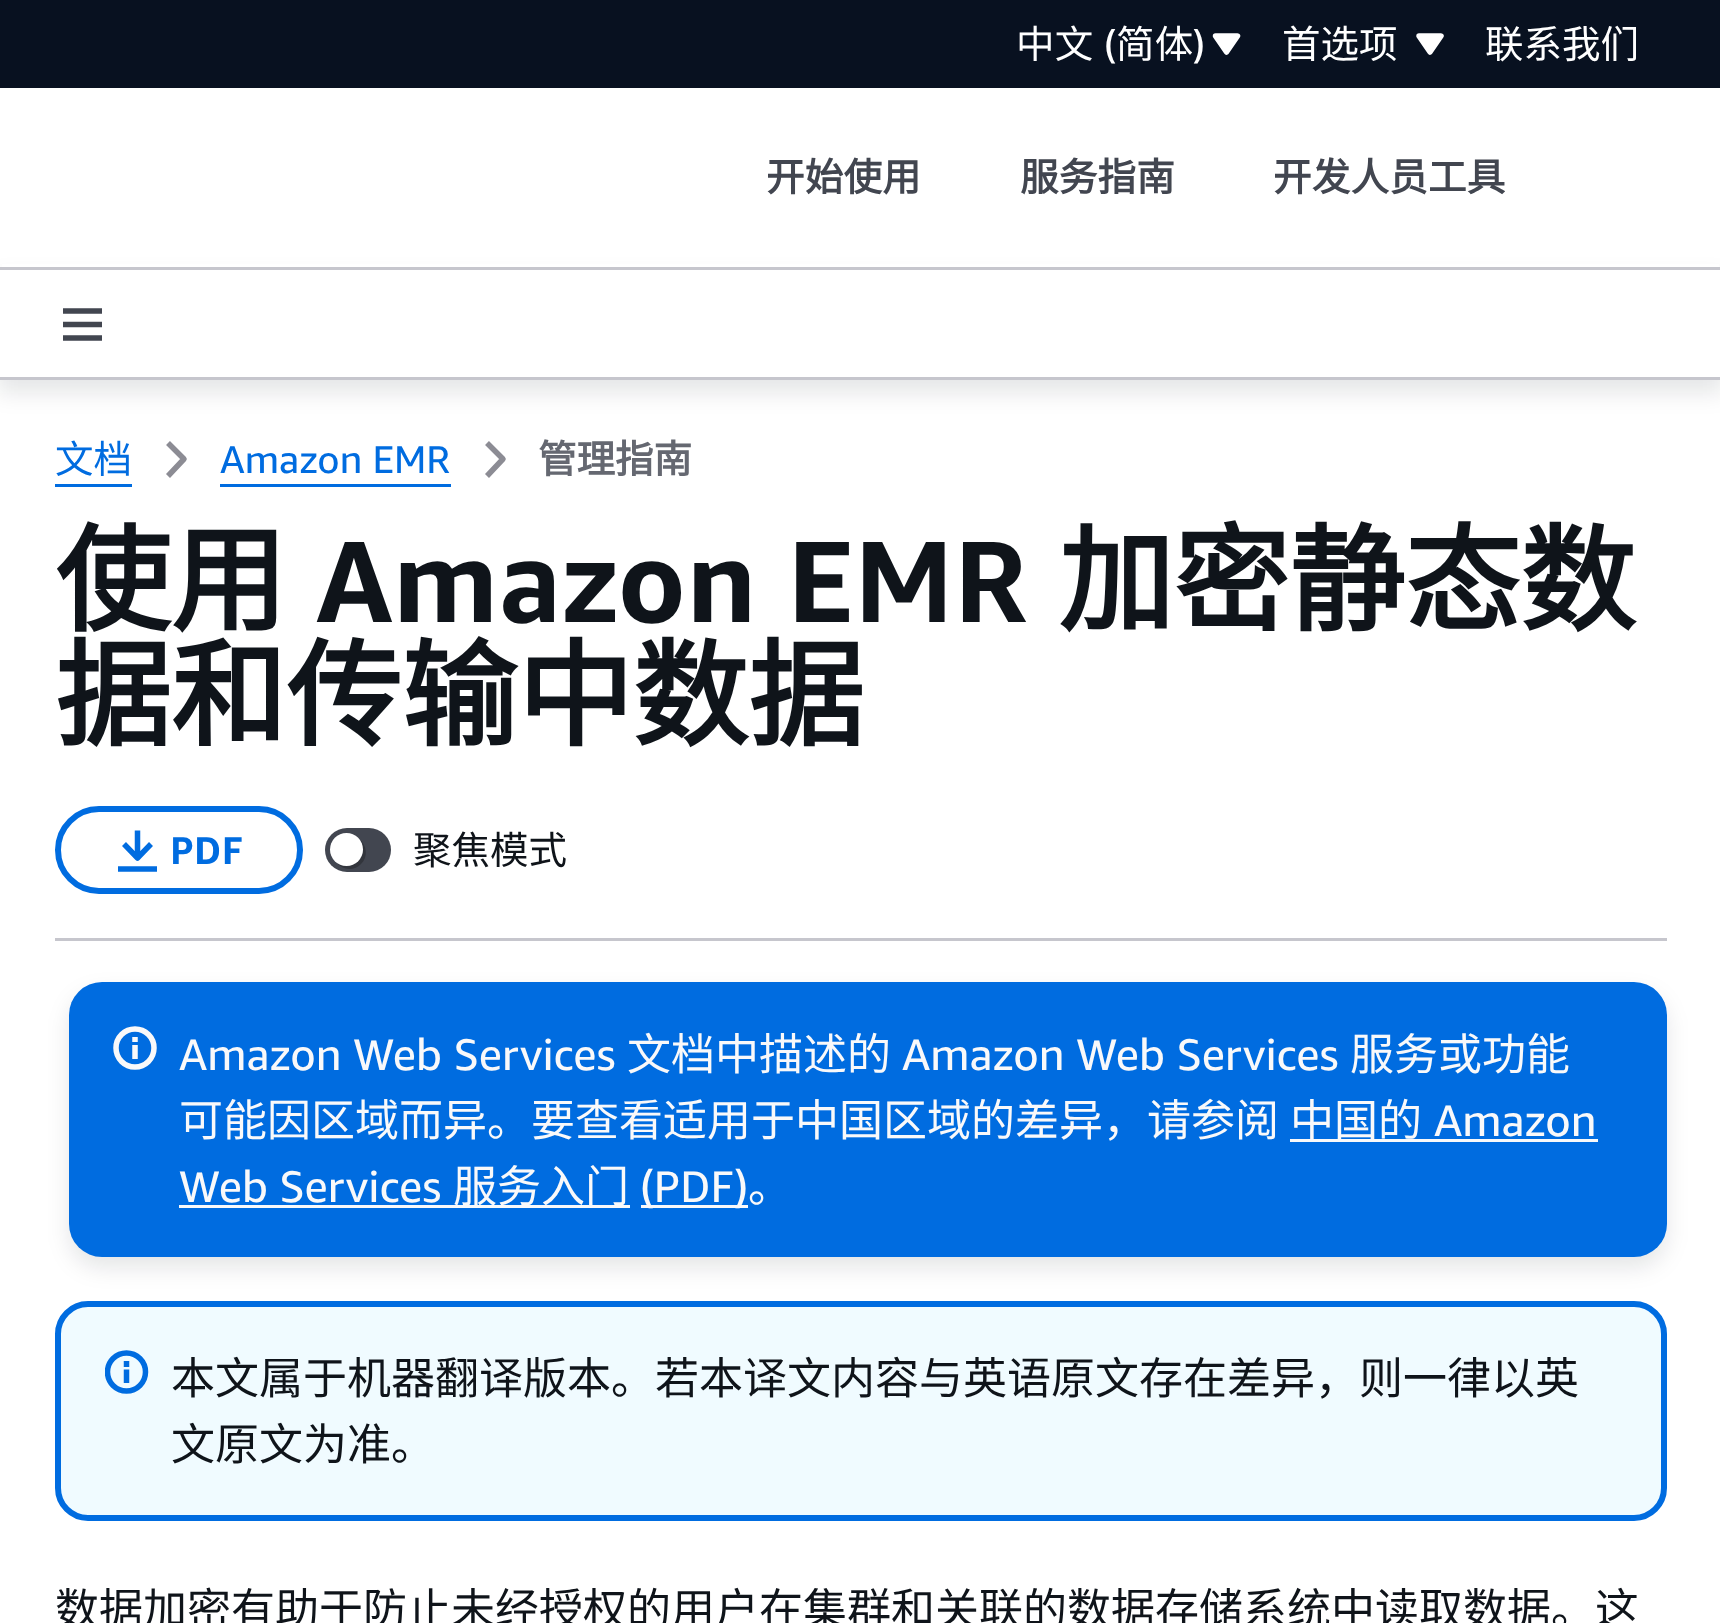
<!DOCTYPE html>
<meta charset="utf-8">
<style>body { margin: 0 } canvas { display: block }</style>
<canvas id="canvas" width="1720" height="1623"></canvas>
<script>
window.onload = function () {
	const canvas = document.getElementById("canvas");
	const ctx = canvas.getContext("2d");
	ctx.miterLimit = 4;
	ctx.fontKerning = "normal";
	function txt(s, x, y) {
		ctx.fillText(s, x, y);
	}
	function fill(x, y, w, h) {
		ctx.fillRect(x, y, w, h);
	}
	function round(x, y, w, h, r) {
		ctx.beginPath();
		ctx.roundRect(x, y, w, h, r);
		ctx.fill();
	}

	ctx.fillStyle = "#FFFFFF";
	fill(0, 0, 1720, 1623);
	ctx.fillStyle = "rgba(0, 7, 22, 0.1)";
	ctx.filter = "blur(11px)";
	ctx.beginPath();
	ctx.rect(-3, 278, 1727, 115);
	ctx.fill();
	ctx.filter = "none";
	ctx.fillStyle = "#FFFFFF";
	fill(2, 264, 1717, 3);
	ctx.fillStyle = "#C6C6CD";
	fill(0, 267, 1720, 3);
	ctx.fillStyle = "#081120";
	fill(0, 0, 1720, 88);
	ctx.fillStyle = "#FFFFFF";
	ctx.beginPath();
	ctx.moveTo(1226.5, 52);
	ctx.lineTo(1237.5, 36);
	ctx.lineTo(1215.5, 36);
	ctx.closePath();
	ctx.fill();
	ctx.strokeStyle = "#FFFFFF";
	ctx.lineWidth = 5.5;
	ctx.lineJoin = "round";
	ctx.stroke();
	ctx.beginPath();
	ctx.moveTo(1430, 52);
	ctx.lineTo(1441, 36);
	ctx.lineTo(1419, 36);
	ctx.closePath();
	ctx.fill();
	ctx.stroke();
	fill(0, 270, 1720, 107);
	ctx.fillStyle = "#C6C6CD";
	fill(0, 377, 1720, 3);
	ctx.beginPath();
	ctx.moveTo(102, 311);
	ctx.lineTo(63, 311);
	ctx.moveTo(102, 324.5);
	ctx.lineTo(63, 324.5);
	ctx.moveTo(102, 338);
	ctx.lineTo(63, 338);
	ctx.strokeStyle = "#424650";
	ctx.stroke();
	ctx.fillStyle = "#006CE0";
	fill(55, 484, 77, 3);
	ctx.beginPath();
	ctx.moveTo(168, 443);
	ctx.lineTo(184, 459);
	ctx.lineTo(168, 476);
	ctx.strokeStyle = "#8C8C94";
	ctx.stroke();
	fill(220, 484, 231, 3);
	ctx.beginPath();
	ctx.moveTo(487, 443);
	ctx.lineTo(503, 459);
	ctx.lineTo(487, 476);
	ctx.stroke();
	ctx.fillStyle = "#C6C6CD";
	fill(55, 938, 1612, 3);
	ctx.beginPath();
	ctx.roundRect(58, 809, 242, 82, 41);
	ctx.strokeStyle = "#006CE0";
	ctx.lineWidth = 6;
	ctx.lineJoin = "miter";
	ctx.stroke();
	ctx.beginPath();
	ctx.moveTo(118, 869);
	ctx.lineTo(157, 869);
	ctx.moveTo(151, 844);
	ctx.lineTo(137.5, 858);
	ctx.lineTo(124, 844);
	ctx.moveTo(137.5, 855);
	ctx.lineTo(137.5, 830.5);
	ctx.lineWidth = 5.5;
	ctx.lineJoin = "round";
	ctx.stroke();
	ctx.fillStyle = "#424650";
	round(325, 828, 66, 44, 22);
	ctx.fillStyle = "#32353C";
	ctx.beginPath();
	ctx.moveTo(337, 863);
	ctx.bezierCurveTo(343, 870.5, 354.5, 871, 361, 864);
	ctx.bezierCurveTo(368.5, 857, 367, 845, 359, 839);
	ctx.bezierCurveTo(371.5, 853.5, 352.5, 874.5, 337, 863);
	ctx.closePath();
	ctx.fill();
	ctx.fillStyle = "#FFFFFF";
	ctx.beginPath();
	ctx.arc(346.5, 849.5, 16.5, 0, Math.PI * 2);
	ctx.fill();
	ctx.fillStyle = "rgba(0, 7, 22, 0.1)";
	ctx.filter = "blur(11px)";
	ctx.beginPath();
	ctx.roundRect(69, 993, 1598, 275, 33);
	ctx.fill();
	ctx.filter = "none";
	ctx.fillStyle = "#006CE0";
	round(69, 982, 1598, 275, 33);
	ctx.beginPath();
	ctx.arc(135, 1048, 19, 0, Math.PI * 2);
	ctx.strokeStyle = "#F9F9FA";
	ctx.stroke();
	ctx.beginPath();
	ctx.moveTo(135, 1059);
	ctx.lineTo(135, 1045);
	ctx.moveTo(135, 1042);
	ctx.lineTo(135, 1037);
	ctx.lineJoin = "miter";
	ctx.stroke();
	ctx.fillStyle = "#F9F9FA";
	fill(1290, 1139, 308, 3);
	fill(179, 1205, 451, 3);
	fill(641, 1205, 107, 3);
	ctx.fillStyle = "#F0FBFF";
	ctx.beginPath();
	ctx.roundRect(58, 1304, 1606, 214, 30);
	ctx.fill();
	ctx.strokeStyle = "#006CE0";
	ctx.lineWidth = 6;
	ctx.stroke();
	ctx.save();
	ctx.beginPath();
	ctx.rect(105, 1350, 44, 44);
	ctx.clip();
	ctx.beginPath();
	ctx.arc(126.5, 1372, 19, 0, Math.PI * 2);
	ctx.lineWidth = 5.5;
	ctx.stroke();
	ctx.restore();
	ctx.beginPath();
	ctx.moveTo(126.5, 1383);
	ctx.lineTo(126.5, 1369.5);
	ctx.moveTo(126.5, 1367);
	ctx.lineTo(126.5, 1361);
	ctx.lineWidth = 5.5;
	ctx.stroke();
	ctx.letterSpacing = "0.25px";
	ctx.font = "38.5px Noto Sans CJK SC";
	ctx.fillStyle = "#FFFFFF";
	txt("中文", 1016, 58);
	ctx.font = "38.5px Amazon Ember";
	txt("(", 1104, 58);
	ctx.font = "38.5px Noto Sans CJK SC";
	txt("简体", 1116, 58);
	ctx.font = "38.5px Amazon Ember";
	txt(")", 1193, 58);
	ctx.letterSpacing = "0px";
	ctx.font = "38.5px Noto Sans CJK SC";
	txt("首选项", 1282, 58);
	txt("联系我们", 1485, 58);
	ctx.letterSpacing = "0.25px";
	ctx.font = "bold 38.5px Noto Sans CJK SC";
	ctx.fillStyle = "#424650";
	txt("开始使用", 766, 191);
	txt("服务指南", 1020, 191);
	txt("开发人员工具", 1273, 191);
	ctx.letterSpacing = "0px";
	ctx.font = "38.5px Noto Sans CJK SC";
	ctx.fillStyle = "#006CE0";
	txt("文档", 55, 473);
	ctx.font = "38.5px Amazon Ember";
	txt("Amazon EMR", 220, 473);
	ctx.font = "bold 38.5px Noto Sans CJK SC";
	ctx.fillStyle = "#656871";
	txt("管理指南", 538, 473);
	ctx.font = "bold 115.5px Noto Sans CJK SC";
	ctx.fillStyle = "#0F141A";
	txt("使用", 55, 622);
	ctx.font = "bold 115.5px Amazon Ember";
	txt("Amazon EMR", 316, 622);
	ctx.font = "bold 115.5px Noto Sans CJK SC";
	txt("加密静态数", 1058, 622);
	txt("据和传输中数据", 55, 737);
	ctx.letterSpacing = "0.25px";
	ctx.font = "bold 38.5px Amazon Ember";
	ctx.fillStyle = "#006CE0";
	txt("PDF", 170, 864);
	ctx.letterSpacing = "0px";
	ctx.font = "38.5px Noto Sans CJK SC";
	ctx.fillStyle = "#0F141A";
	txt("聚焦模式", 413, 864);
	ctx.font = "44px Amazon Ember";
	ctx.fillStyle = "#F9F9FA";
	txt("Amazon Web Services", 179, 1070);
	ctx.font = "44px Noto Sans CJK SC";
	txt("文档中描述的", 627, 1070);
	ctx.font = "44px Amazon Ember";
	txt("Amazon Web Services", 902, 1070);
	ctx.font = "44px Noto Sans CJK SC";
	txt("服务或功能", 1350, 1070);
	txt("可能因区域而异。要查看适用于中国区域的差异，请参阅", 179, 1136);
	txt("中国的", 1290, 1136);
	ctx.font = "44px Amazon Ember";
	txt("Amazon", 1434, 1136);
	txt("Web Services", 179, 1202);
	ctx.font = "44px Noto Sans CJK SC";
	txt("服务入门", 453, 1202);
	ctx.font = "44px Amazon Ember";
	txt("(PDF)", 640, 1202);
	ctx.font = "44px Noto Sans CJK SC";
	txt("。", 748, 1202);
	ctx.fillStyle = "#0F141A";
	txt("本文属于机器翻译版本。若本译文内容与英语原文存在差异，则一律以英", 171, 1394);
	txt("文原文为准。", 171, 1460);
	txt("数据加密有助于防止未经授权的用户在集群和关联的数据存储系统中读取数据。这", 55, 1625);
};
</script>
